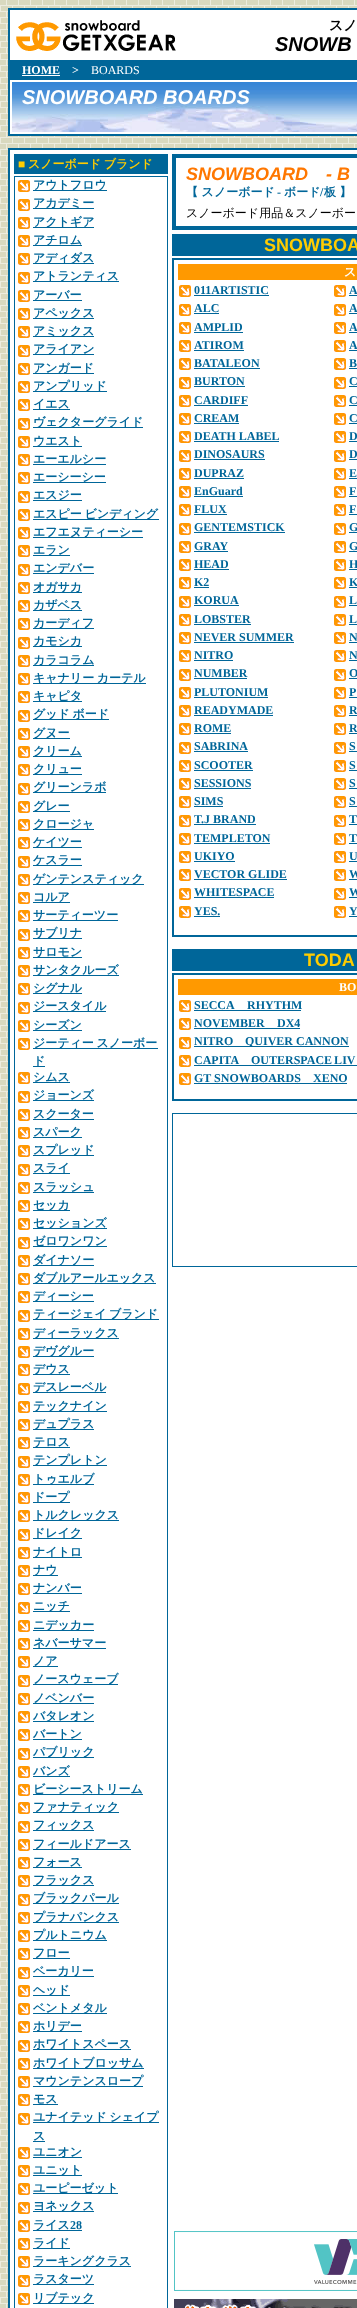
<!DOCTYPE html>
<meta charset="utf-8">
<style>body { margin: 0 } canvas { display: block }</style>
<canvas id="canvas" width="357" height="2308"></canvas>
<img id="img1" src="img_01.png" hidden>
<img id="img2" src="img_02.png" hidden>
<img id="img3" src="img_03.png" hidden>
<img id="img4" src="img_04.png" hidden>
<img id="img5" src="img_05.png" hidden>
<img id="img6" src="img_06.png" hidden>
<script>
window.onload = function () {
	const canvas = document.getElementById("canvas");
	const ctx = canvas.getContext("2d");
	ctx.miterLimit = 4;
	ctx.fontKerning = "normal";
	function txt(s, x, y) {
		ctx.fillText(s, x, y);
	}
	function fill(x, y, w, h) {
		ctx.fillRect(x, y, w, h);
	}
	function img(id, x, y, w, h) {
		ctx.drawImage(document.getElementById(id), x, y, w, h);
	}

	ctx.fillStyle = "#FFFFFF";
	fill(0, 0, 357, 2308);
	img("img1", 0, 0, 357, 2308);
	ctx.beginPath();
	ctx.rect(9, 9, 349, 126);
	ctx.fill();
	ctx.strokeStyle = "#006699";
	ctx.lineWidth = 2;
	ctx.stroke();
	img("img2", 16, 20, 160, 31);
	ctx.fillStyle = "#006699";
	fill(10, 60, 347, 20);
	ctx.fillStyle = "#FFFFFF";
	fill(22, 75, 38, 1);
	img("img3", 12, 82, 345, 50);
	ctx.beginPath();
	ctx.rect(9, 149, 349, 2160);
	ctx.fill();
	ctx.stroke();
	ctx.fillStyle = "#006699";
	fill(14, 154, 154, 20);
	ctx.lineWidth = 1;
	ctx.strokeRect(14.5, 176.5, 153, 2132);
	img("img4", 18, 180, 12, 12);
	fill(33, 190, 74, 1);
	img("img4", 18, 199, 12, 12);
	fill(33, 208, 61, 1);
	img("img4", 18, 217, 12, 12);
	fill(33, 227, 61, 1);
	img("img4", 18, 235, 12, 12);
	fill(33, 245, 49, 1);
	img("img4", 18, 253, 12, 12);
	fill(33, 263, 61, 1);
	img("img4", 18, 272, 12, 12);
	fill(33, 281, 86, 1);
	img("img4", 18, 290, 12, 12);
	fill(33, 300, 49, 1);
	img("img4", 18, 308, 12, 12);
	fill(33, 318, 61, 1);
	img("img4", 18, 326, 12, 12);
	fill(33, 336, 61, 1);
	img("img4", 18, 345, 12, 12);
	fill(33, 354, 61, 1);
	img("img4", 18, 363, 12, 12);
	fill(33, 373, 61, 1);
	img("img4", 18, 381, 12, 12);
	fill(33, 391, 74, 1);
	img("img4", 18, 399, 12, 12);
	fill(33, 409, 37, 1);
	img("img4", 18, 418, 12, 12);
	fill(33, 427, 110, 1);
	img("img4", 18, 436, 12, 12);
	fill(33, 446, 49, 1);
	img("img4", 18, 454, 12, 12);
	fill(33, 464, 73, 1);
	img("img4", 18, 472, 12, 12);
	fill(33, 482, 73, 1);
	img("img4", 18, 491, 12, 12);
	fill(33, 500, 49, 1);
	img("img4", 18, 509, 12, 12);
	fill(33, 519, 126, 1);
	img("img4", 18, 527, 12, 12);
	fill(33, 537, 110, 1);
	img("img4", 18, 545, 12, 12);
	fill(33, 555, 37, 1);
	img("img4", 18, 564, 12, 12);
	fill(33, 573, 61, 1);
	img("img4", 18, 582, 12, 12);
	fill(33, 592, 49, 1);
	img("img4", 18, 600, 12, 12);
	fill(33, 610, 49, 1);
	img("img4", 18, 618, 12, 12);
	fill(33, 628, 61, 1);
	img("img4", 18, 637, 12, 12);
	fill(33, 646, 49, 1);
	img("img4", 18, 655, 12, 12);
	fill(33, 665, 61, 1);
	img("img4", 18, 673, 12, 12);
	fill(33, 683, 113, 1);
	img("img4", 18, 691, 12, 12);
	fill(33, 701, 49, 1);
	img("img4", 18, 710, 12, 12);
	fill(33, 719, 76, 1);
	img("img4", 18, 728, 12, 12);
	fill(33, 738, 37, 1);
	img("img4", 18, 746, 12, 12);
	fill(33, 756, 49, 1);
	img("img4", 18, 764, 12, 12);
	fill(33, 774, 49, 1);
	img("img4", 18, 783, 12, 12);
	fill(33, 792, 73, 1);
	img("img4", 18, 801, 12, 12);
	fill(33, 811, 37, 1);
	img("img4", 18, 819, 12, 12);
	fill(33, 829, 61, 1);
	img("img4", 18, 837, 12, 12);
	fill(33, 847, 49, 1);
	img("img4", 18, 856, 12, 12);
	fill(33, 865, 49, 1);
	img("img4", 18, 874, 12, 12);
	fill(33, 884, 111, 1);
	img("img4", 18, 892, 12, 12);
	fill(33, 902, 37, 1);
	img("img4", 18, 910, 12, 12);
	fill(33, 920, 85, 1);
	img("img4", 18, 929, 12, 12);
	fill(33, 938, 49, 1);
	img("img4", 18, 947, 12, 12);
	fill(33, 957, 49, 1);
	img("img4", 18, 965, 12, 12);
	fill(33, 975, 86, 1);
	img("img4", 18, 983, 12, 12);
	fill(33, 993, 49, 1);
	img("img4", 18, 1002, 12, 12);
	fill(33, 1011, 73, 1);
	img("img4", 18, 1020, 12, 12);
	fill(33, 1030, 49, 1);
	img("img4", 18, 1038, 12, 12);
	fill(33, 1048, 125, 1);
	fill(33, 1066, 12, 1);
	img("img4", 18, 1072, 12, 12);
	fill(33, 1082, 37, 1);
	img("img4", 18, 1091, 12, 12);
	fill(33, 1100, 61, 1);
	img("img4", 18, 1109, 12, 12);
	fill(33, 1119, 61, 1);
	img("img4", 18, 1127, 12, 12);
	fill(33, 1137, 49, 1);
	img("img4", 18, 1145, 12, 12);
	fill(33, 1155, 61, 1);
	img("img4", 18, 1164, 12, 12);
	fill(33, 1173, 37, 1);
	img("img4", 18, 1182, 12, 12);
	fill(33, 1192, 61, 1);
	img("img4", 18, 1200, 12, 12);
	fill(33, 1210, 37, 1);
	img("img4", 18, 1218, 12, 12);
	fill(33, 1228, 74, 1);
	img("img4", 18, 1237, 12, 12);
	fill(33, 1246, 74, 1);
	img("img4", 18, 1255, 12, 12);
	fill(33, 1265, 61, 1);
	img("img4", 18, 1273, 12, 12);
	fill(33, 1283, 123, 1);
	img("img4", 18, 1291, 12, 12);
	fill(33, 1301, 61, 1);
	img("img4", 18, 1310, 12, 12);
	fill(33, 1319, 126, 1);
	img("img4", 18, 1328, 12, 12);
	fill(33, 1338, 86, 1);
	img("img4", 18, 1346, 12, 12);
	fill(33, 1356, 61, 1);
	img("img4", 18, 1364, 12, 12);
	fill(33, 1374, 37, 1);
	img("img4", 18, 1383, 12, 12);
	fill(33, 1392, 73, 1);
	img("img4", 18, 1401, 12, 12);
	fill(33, 1411, 74, 1);
	img("img4", 18, 1419, 12, 12);
	fill(33, 1429, 61, 1);
	img("img4", 18, 1437, 12, 12);
	fill(33, 1447, 37, 1);
	img("img4", 18, 1456, 12, 12);
	fill(33, 1465, 74, 1);
	img("img4", 18, 1474, 12, 12);
	fill(33, 1484, 61, 1);
	img("img4", 18, 1492, 12, 12);
	fill(33, 1502, 37, 1);
	img("img4", 18, 1510, 12, 12);
	fill(33, 1520, 86, 1);
	img("img4", 18, 1529, 12, 12);
	fill(33, 1538, 49, 1);
	img("img4", 18, 1547, 12, 12);
	fill(33, 1557, 49, 1);
	img("img4", 18, 1565, 12, 12);
	fill(33, 1575, 25, 1);
	img("img4", 18, 1583, 12, 12);
	fill(33, 1593, 49, 1);
	img("img4", 18, 1602, 12, 12);
	fill(33, 1611, 37, 1);
	img("img4", 18, 1620, 12, 12);
	fill(33, 1630, 61, 1);
	img("img4", 18, 1638, 12, 12);
	fill(33, 1648, 73, 1);
	img("img4", 18, 1656, 12, 12);
	fill(33, 1666, 25, 1);
	img("img4", 18, 1675, 12, 12);
	fill(33, 1684, 85, 1);
	img("img4", 18, 1693, 12, 12);
	fill(33, 1703, 61, 1);
	img("img4", 18, 1711, 12, 12);
	fill(33, 1721, 61, 1);
	img("img4", 18, 1729, 12, 12);
	fill(33, 1739, 49, 1);
	img("img4", 18, 1748, 12, 12);
	fill(33, 1757, 61, 1);
	img("img4", 18, 1766, 12, 12);
	fill(33, 1776, 37, 1);
	img("img4", 18, 1784, 12, 12);
	fill(33, 1794, 110, 1);
	img("img4", 18, 1802, 12, 12);
	fill(33, 1812, 86, 1);
	img("img4", 18, 1821, 12, 12);
	fill(33, 1830, 61, 1);
	img("img4", 18, 1839, 12, 12);
	fill(33, 1849, 98, 1);
	img("img4", 18, 1857, 12, 12);
	fill(33, 1867, 49, 1);
	img("img4", 18, 1875, 12, 12);
	fill(33, 1885, 61, 1);
	img("img4", 18, 1894, 12, 12);
	fill(33, 1903, 86, 1);
	img("img4", 18, 1912, 12, 12);
	fill(33, 1922, 86, 1);
	img("img4", 18, 1930, 12, 12);
	fill(33, 1940, 74, 1);
	img("img4", 18, 1948, 12, 12);
	fill(33, 1958, 37, 1);
	img("img4", 18, 1967, 12, 12);
	fill(33, 1976, 61, 1);
	img("img4", 18, 1985, 12, 12);
	fill(33, 1995, 37, 1);
	img("img4", 18, 2003, 12, 12);
	fill(33, 2013, 74, 1);
	img("img4", 18, 2021, 12, 12);
	fill(33, 2031, 49, 1);
	img("img4", 18, 2040, 12, 12);
	fill(33, 2049, 98, 1);
	img("img4", 18, 2058, 12, 12);
	fill(33, 2068, 111, 1);
	img("img4", 18, 2076, 12, 12);
	fill(33, 2086, 110, 1);
	img("img4", 18, 2094, 12, 12);
	fill(33, 2104, 25, 1);
	img("img4", 18, 2113, 12, 12);
	fill(33, 2122, 126, 1);
	fill(33, 2141, 12, 1);
	img("img4", 18, 2147, 12, 12);
	fill(33, 2157, 49, 1);
	img("img4", 18, 2165, 12, 12);
	fill(33, 2175, 49, 1);
	img("img4", 18, 2183, 12, 12);
	fill(33, 2193, 85, 1);
	img("img4", 18, 2202, 12, 12);
	fill(33, 2211, 61, 1);
	img("img4", 18, 2220, 12, 12);
	fill(33, 2230, 49, 1);
	img("img4", 18, 2238, 12, 12);
	fill(33, 2248, 37, 1);
	img("img4", 18, 2256, 12, 12);
	fill(33, 2266, 98, 1);
	img("img4", 18, 2275, 12, 12);
	fill(33, 2284, 61, 1);
	img("img4", 18, 2293, 12, 12);
	fill(33, 2303, 61, 1);
	ctx.lineWidth = 4;
	ctx.strokeRect(174, 156, 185, 72);
	fill(172, 234, 185, 22);
	ctx.lineWidth = 2;
	ctx.strokeRect(173, 259, 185, 677);
	ctx.fillStyle = "#FF9900";
	fill(178, 264, 179, 16);
	img("img4", 179, 285, 12, 12);
	ctx.fillStyle = "#006699";
	fill(194, 295, 75, 1);
	img("img4", 334, 285, 12, 12);
	fill(349, 295, 8, 1);
	img("img4", 179, 304, 12, 12);
	fill(194, 313, 25, 1);
	img("img4", 334, 304, 12, 12);
	fill(349, 313, 8, 1);
	img("img4", 179, 322, 12, 12);
	fill(194, 332, 49, 1);
	img("img4", 334, 322, 12, 12);
	fill(349, 332, 8, 1);
	img("img4", 179, 340, 12, 12);
	fill(194, 350, 50, 1);
	img("img4", 334, 340, 12, 12);
	fill(349, 350, 8, 1);
	img("img4", 179, 358, 12, 12);
	fill(194, 368, 66, 1);
	img("img4", 334, 358, 12, 12);
	fill(349, 368, 8, 1);
	img("img4", 179, 377, 12, 12);
	fill(194, 386, 51, 1);
	img("img4", 334, 377, 12, 12);
	fill(349, 386, 8, 1);
	img("img4", 179, 395, 12, 12);
	fill(194, 405, 54, 1);
	img("img4", 334, 395, 12, 12);
	fill(349, 405, 8, 1);
	img("img4", 179, 413, 12, 12);
	fill(194, 423, 45, 1);
	img("img4", 334, 413, 12, 12);
	fill(349, 423, 8, 1);
	img("img4", 179, 431, 12, 12);
	fill(194, 441, 85, 1);
	img("img4", 334, 431, 12, 12);
	fill(349, 441, 8, 1);
	img("img4", 179, 450, 12, 12);
	fill(194, 459, 71, 1);
	img("img4", 334, 450, 12, 12);
	fill(349, 459, 8, 1);
	img("img4", 179, 468, 12, 12);
	fill(194, 478, 50, 1);
	img("img4", 334, 468, 12, 12);
	fill(349, 478, 8, 1);
	img("img4", 179, 486, 12, 12);
	fill(194, 496, 49, 1);
	img("img4", 334, 486, 12, 12);
	fill(349, 496, 8, 1);
	img("img4", 179, 504, 12, 12);
	fill(194, 514, 33, 1);
	img("img4", 334, 504, 12, 12);
	fill(349, 514, 8, 1);
	img("img4", 179, 523, 12, 12);
	fill(194, 532, 91, 1);
	img("img4", 334, 523, 12, 12);
	fill(349, 532, 8, 1);
	img("img4", 179, 541, 12, 12);
	fill(194, 551, 34, 1);
	img("img4", 334, 541, 12, 12);
	fill(349, 551, 8, 1);
	img("img4", 179, 559, 12, 12);
	fill(194, 569, 35, 1);
	img("img4", 334, 559, 12, 12);
	fill(349, 569, 8, 1);
	img("img4", 179, 577, 12, 12);
	fill(194, 587, 15, 1);
	img("img4", 334, 577, 12, 12);
	fill(349, 587, 8, 1);
	img("img4", 179, 596, 12, 12);
	fill(194, 605, 45, 1);
	img("img4", 334, 596, 12, 12);
	fill(349, 605, 8, 1);
	img("img4", 179, 614, 12, 12);
	fill(194, 624, 57, 1);
	img("img4", 334, 614, 12, 12);
	fill(349, 624, 8, 1);
	img("img4", 179, 632, 12, 12);
	fill(194, 642, 100, 1);
	img("img4", 334, 632, 12, 12);
	fill(349, 642, 8, 1);
	img("img4", 179, 650, 12, 12);
	fill(194, 660, 39, 1);
	img("img4", 334, 650, 12, 12);
	fill(349, 660, 8, 1);
	img("img4", 179, 669, 12, 12);
	fill(194, 678, 53, 1);
	img("img4", 334, 669, 12, 12);
	fill(349, 678, 8, 1);
	img("img4", 179, 687, 12, 12);
	fill(194, 697, 74, 1);
	img("img4", 334, 687, 12, 12);
	fill(349, 697, 8, 1);
	img("img4", 179, 705, 12, 12);
	fill(194, 715, 79, 1);
	img("img4", 334, 705, 12, 12);
	fill(349, 715, 8, 1);
	img("img4", 179, 723, 12, 12);
	fill(194, 733, 37, 1);
	img("img4", 334, 723, 12, 12);
	fill(349, 733, 8, 1);
	img("img4", 179, 742, 12, 12);
	fill(194, 751, 54, 1);
	img("img4", 334, 742, 12, 12);
	fill(349, 751, 8, 1);
	img("img4", 179, 760, 12, 12);
	fill(194, 770, 59, 1);
	img("img4", 334, 760, 12, 12);
	fill(349, 770, 8, 1);
	img("img4", 179, 778, 12, 12);
	fill(194, 788, 57, 1);
	img("img4", 334, 778, 12, 12);
	fill(349, 788, 8, 1);
	img("img4", 179, 796, 12, 12);
	fill(194, 806, 29, 1);
	img("img4", 334, 796, 12, 12);
	fill(349, 806, 8, 1);
	img("img4", 179, 815, 12, 12);
	fill(194, 824, 62, 1);
	img("img4", 334, 815, 12, 12);
	fill(349, 824, 8, 1);
	img("img4", 179, 833, 12, 12);
	fill(194, 843, 76, 1);
	img("img4", 334, 833, 12, 12);
	fill(349, 843, 8, 1);
	img("img4", 179, 851, 12, 12);
	fill(194, 861, 41, 1);
	img("img4", 334, 851, 12, 12);
	fill(349, 861, 8, 1);
	img("img4", 179, 869, 12, 12);
	fill(194, 879, 93, 1);
	img("img4", 334, 869, 12, 12);
	fill(349, 879, 8, 1);
	img("img4", 179, 888, 12, 12);
	fill(194, 897, 80, 1);
	img("img4", 334, 888, 12, 12);
	fill(349, 897, 8, 1);
	img("img4", 179, 906, 12, 12);
	fill(194, 916, 26, 1);
	img("img4", 334, 906, 12, 12);
	fill(349, 916, 8, 1);
	fill(172, 949, 185, 22);
	ctx.strokeRect(173, 974, 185, 126);
	ctx.fillStyle = "#FF9900";
	fill(178, 979, 179, 16);
	img("img4", 179, 1000, 12, 12);
	ctx.fillStyle = "#006699";
	fill(194, 1010, 107, 1);
	img("img4", 179, 1018, 12, 12);
	fill(194, 1028, 106, 1);
	img("img4", 179, 1037, 12, 12);
	fill(194, 1046, 155, 1);
	img("img4", 179, 1055, 12, 12);
	fill(194, 1065, 163, 1);
	img("img4", 179, 1073, 12, 12);
	fill(194, 1083, 153, 1);
	ctx.lineWidth = 1;
	ctx.strokeRect(172.5, 1113.5, 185, 153);
	img("img5", 174, 2231, 183, 60);
	img("img6", 174, 2299, 183, 9);
	ctx.font = "bold 14px WenQuanYi Zen Hei";
	ctx.fillStyle = "#000000";
	txt("スノ", 329, 30);
	ctx.font = "italic bold 20px Liberation Sans";
	txt("SNOWB", 275, 51);
	ctx.font = "bold 12px Liberation Serif";
	ctx.fillStyle = "#FFFFFF";
	txt("HOME", 22, 74);
	txt(">", 72, 74);
	ctx.font = "12px Liberation Serif";
	txt("BOARDS", 91, 74);
	ctx.font = "italic bold 20px Liberation Sans";
	txt("SNOWBOARD BOARDS", 22, 104);
	ctx.font = "12px Liberation Serif";
	ctx.fillStyle = "#FFCC00";
	txt("■", 18, 168);
	ctx.wordSpacing = "-1px";
	ctx.font = "bold 12px WenQuanYi Zen Hei";
	txt("スノーボード ブランド", 28, 168);
	ctx.wordSpacing = "0px";
	ctx.fillStyle = "#006699";
	txt("アウトフロウ", 33, 189);
	txt("アカデミー", 33, 207);
	txt("アクトギア", 33, 226);
	txt("アチロム", 33, 244);
	txt("アディダス", 33, 262);
	txt("アトランティス", 33, 280);
	txt("アーバー", 33, 299);
	txt("アペックス", 33, 317);
	txt("アミックス", 33, 335);
	txt("アライアン", 33, 353);
	txt("アンガード", 33, 372);
	txt("アンプリッド", 33, 390);
	txt("イエス", 33, 408);
	txt("ヴェクターグライド", 33, 426);
	txt("ウエスト", 33, 445);
	txt("エーエルシー", 33, 463);
	txt("エーシーシー", 33, 481);
	txt("エスジー", 33, 499);
	ctx.wordSpacing = "-1px";
	txt("エスピー ビンディング", 33, 518);
	ctx.wordSpacing = "0px";
	txt("エフエヌティーシー", 33, 536);
	txt("エラン", 33, 554);
	txt("エンデバー", 33, 572);
	txt("オガサカ", 33, 591);
	txt("カザベス", 33, 609);
	txt("カーディフ", 33, 627);
	txt("カモシカ", 33, 645);
	txt("カラコラム", 33, 664);
	ctx.wordSpacing = "-1px";
	txt("キャナリー カーテル", 33, 682);
	ctx.wordSpacing = "0px";
	txt("キャピタ", 33, 700);
	ctx.wordSpacing = "-1px";
	txt("グッド ボード", 33, 718);
	ctx.wordSpacing = "0px";
	txt("グヌー", 33, 737);
	txt("クリーム", 33, 755);
	txt("クリュー", 33, 773);
	txt("グリーンラボ", 33, 791);
	txt("グレー", 33, 810);
	txt("クロージャ", 33, 828);
	txt("ケイツー", 33, 846);
	txt("ケスラー", 33, 864);
	txt("ゲンテンスティック", 33, 883);
	txt("コルア", 33, 901);
	txt("サーティーツー", 33, 919);
	txt("サブリナ", 33, 937);
	txt("サロモン", 33, 956);
	txt("サンタクルーズ", 33, 974);
	txt("シグナル", 33, 992);
	txt("ジースタイル", 33, 1010);
	txt("シーズン", 33, 1029);
	ctx.wordSpacing = "-1px";
	txt("ジーティー スノーボー", 33, 1047);
	ctx.wordSpacing = "0px";
	txt("ド", 33, 1065);
	txt("シムス", 33, 1081);
	txt("ジョーンズ", 33, 1099);
	txt("スクーター", 33, 1118);
	txt("スパーク", 33, 1136);
	txt("スプレッド", 33, 1154);
	txt("スライ", 33, 1172);
	txt("スラッシュ", 33, 1191);
	txt("セッカ", 33, 1209);
	txt("セッションズ", 33, 1227);
	txt("ゼロワンワン", 33, 1245);
	txt("ダイナソー", 33, 1264);
	txt("ダブルアールエックス", 33, 1282);
	txt("ディーシー", 33, 1300);
	ctx.wordSpacing = "-1px";
	txt("ティージェイ ブランド", 33, 1318);
	ctx.wordSpacing = "0px";
	txt("ディーラックス", 33, 1337);
	txt("デヴグルー", 33, 1355);
	txt("デウス", 33, 1373);
	txt("デスレーベル", 33, 1391);
	txt("テックナイン", 33, 1410);
	txt("デュプラス", 33, 1428);
	txt("テロス", 33, 1446);
	txt("テンプレトン", 33, 1464);
	txt("トゥエルブ", 33, 1483);
	txt("ドープ", 33, 1501);
	txt("トルクレックス", 33, 1519);
	txt("ドレイク", 33, 1537);
	txt("ナイトロ", 33, 1556);
	txt("ナウ", 33, 1574);
	txt("ナンバー", 33, 1592);
	txt("ニッチ", 33, 1610);
	txt("ニデッカー", 33, 1629);
	txt("ネバーサマー", 33, 1647);
	txt("ノア", 33, 1665);
	txt("ノースウェーブ", 33, 1683);
	txt("ノベンバー", 33, 1702);
	txt("バタレオン", 33, 1720);
	txt("バートン", 33, 1738);
	txt("パブリック", 33, 1756);
	txt("バンズ", 33, 1775);
	txt("ビーシーストリーム", 33, 1793);
	txt("ファナティック", 33, 1811);
	txt("フィックス", 33, 1829);
	txt("フィールドアース", 33, 1848);
	txt("フォース", 33, 1866);
	txt("フラックス", 33, 1884);
	txt("ブラックパール", 33, 1902);
	txt("プラナパンクス", 33, 1921);
	txt("プルトニウム", 33, 1939);
	txt("フロー", 33, 1957);
	txt("ベーカリー", 33, 1975);
	txt("ヘッド", 33, 1994);
	txt("ベントメタル", 33, 2012);
	txt("ホリデー", 33, 2030);
	txt("ホワイトスペース", 33, 2048);
	txt("ホワイトブロッサム", 33, 2067);
	txt("マウンテンスロープ", 33, 2085);
	txt("モス", 33, 2103);
	ctx.wordSpacing = "-1px";
	txt("ユナイテッド シェイプ", 33, 2121);
	ctx.wordSpacing = "0px";
	txt("ス", 33, 2140);
	txt("ユニオン", 33, 2156);
	txt("ユニット", 33, 2174);
	txt("ユーピーゼット", 33, 2192);
	txt("ヨネックス", 33, 2210);
	txt("ライス", 33, 2229);
	ctx.font = "bold 12px Liberation Serif";
	txt("28", 70, 2229);
	ctx.font = "bold 12px WenQuanYi Zen Hei";
	txt("ライド", 33, 2247);
	txt("ラーキングクラス", 33, 2265);
	txt("ラスターツ", 33, 2283);
	txt("リブテック", 33, 2302);
	ctx.font = "italic bold 18px Liberation Sans";
	ctx.fillStyle = "#FF7700";
	txt("SNOWBOARD", 186, 180);
	txt("- B", 326, 180);
	ctx.font = "bold 12px WenQuanYi Zen Hei";
	ctx.fillStyle = "#006699";
	txt("【 スノーボード", 186, 196);
	ctx.font = "bold 12px Liberation Serif";
	txt("-", 277, 196);
	ctx.font = "bold 12px WenQuanYi Zen Hei";
	txt("ボード", 284, 196);
	ctx.font = "bold 12px Liberation Serif";
	txt("/", 320, 196);
	ctx.font = "bold 12px WenQuanYi Zen Hei";
	txt("板 】", 324, 196);
	ctx.font = "500 12px WenQuanYi Zen Hei";
	ctx.fillStyle = "#000000";
	txt("スノーボード用品＆スノーボー", 186, 217);
	ctx.font = "bold 18px Liberation Sans";
	ctx.fillStyle = "#FFCC00";
	txt("SNOWBOA", 264, 251);
	ctx.wordSpacing = "-1px";
	ctx.font = "bold 12px WenQuanYi Zen Hei";
	ctx.fillStyle = "#FFFFFF";
	txt("ス", 344, 276);
	ctx.wordSpacing = "0px";
	ctx.font = "bold 12px Liberation Serif";
	ctx.fillStyle = "#006699";
	txt("011ARTISTIC", 194, 294);
	txt("A", 349, 294);
	txt("ALC", 194, 312);
	txt("A", 349, 312);
	txt("AMPLID", 194, 331);
	txt("A", 349, 331);
	txt("ATIROM", 194, 349);
	txt("A", 349, 349);
	txt("BATALEON", 194, 367);
	txt("B", 349, 367);
	txt("BURTON", 194, 385);
	txt("C", 349, 385);
	txt("CARDIFF", 194, 404);
	txt("C", 349, 404);
	txt("CREAM", 194, 422);
	txt("C", 349, 422);
	txt("DEATH LABEL", 194, 440);
	txt("D", 349, 440);
	txt("DINOSAURS", 194, 458);
	txt("D", 349, 458);
	txt("DUPRAZ", 194, 477);
	txt("E", 349, 477);
	txt("EnGuard", 194, 495);
	txt("F", 349, 495);
	txt("FLUX", 194, 513);
	txt("F", 349, 513);
	txt("GENTEMSTICK", 194, 531);
	txt("G", 349, 531);
	txt("GRAY", 194, 550);
	txt("G", 349, 550);
	txt("HEAD", 194, 568);
	txt("H", 349, 568);
	txt("K2", 194, 586);
	txt("K", 349, 586);
	txt("KORUA", 194, 604);
	txt("L", 349, 604);
	txt("LOBSTER", 194, 623);
	txt("L", 349, 623);
	txt("NEVER SUMMER", 194, 641);
	txt("N", 349, 641);
	txt("NITRO", 194, 659);
	txt("N", 349, 659);
	txt("NUMBER", 194, 677);
	txt("O", 349, 677);
	txt("PLUTONIUM", 194, 696);
	txt("P", 349, 696);
	txt("READYMADE", 194, 714);
	txt("R", 349, 714);
	txt("ROME", 194, 732);
	txt("R", 349, 732);
	txt("SABRINA", 194, 750);
	txt("S", 349, 750);
	txt("SCOOTER", 194, 769);
	txt("S", 349, 769);
	txt("SESSIONS", 194, 787);
	txt("S", 349, 787);
	txt("SIMS", 194, 805);
	txt("S", 349, 805);
	txt("T.J BRAND", 194, 823);
	txt("T", 349, 823);
	txt("TEMPLETON", 194, 842);
	txt("T", 349, 842);
	txt("UKIYO", 194, 860);
	txt("U", 349, 860);
	txt("VECTOR GLIDE", 194, 878);
	txt("W", 349, 878);
	txt("WHITESPACE", 194, 896);
	txt("W", 349, 896);
	txt("YES.", 194, 915);
	txt("Y", 349, 915);
	ctx.font = "bold 18px Liberation Sans";
	ctx.fillStyle = "#FFCC00";
	txt("TODA", 304, 966);
	ctx.font = "bold 12px Liberation Serif";
	ctx.fillStyle = "#FFFFFF";
	txt("BO", 339, 991);
	ctx.fillStyle = "#006699";
	txt("SECCA", 194, 1009);
	txt("RHYTHM", 247, 1009);
	txt("NOVEMBER", 194, 1027);
	txt("DX4", 277, 1027);
	txt("NITRO", 194, 1045);
	txt("QUIVER CANNON", 245, 1045);
	txt("CAPITA", 194, 1064);
	ctx.wordSpacing = "-1px";
	txt("OUTERSPACE LIV", 251, 1064);
	ctx.wordSpacing = "0px";
	txt("GT SNOWBOARDS", 194, 1082);
	txt("XENO", 313, 1082);
};
</script>
